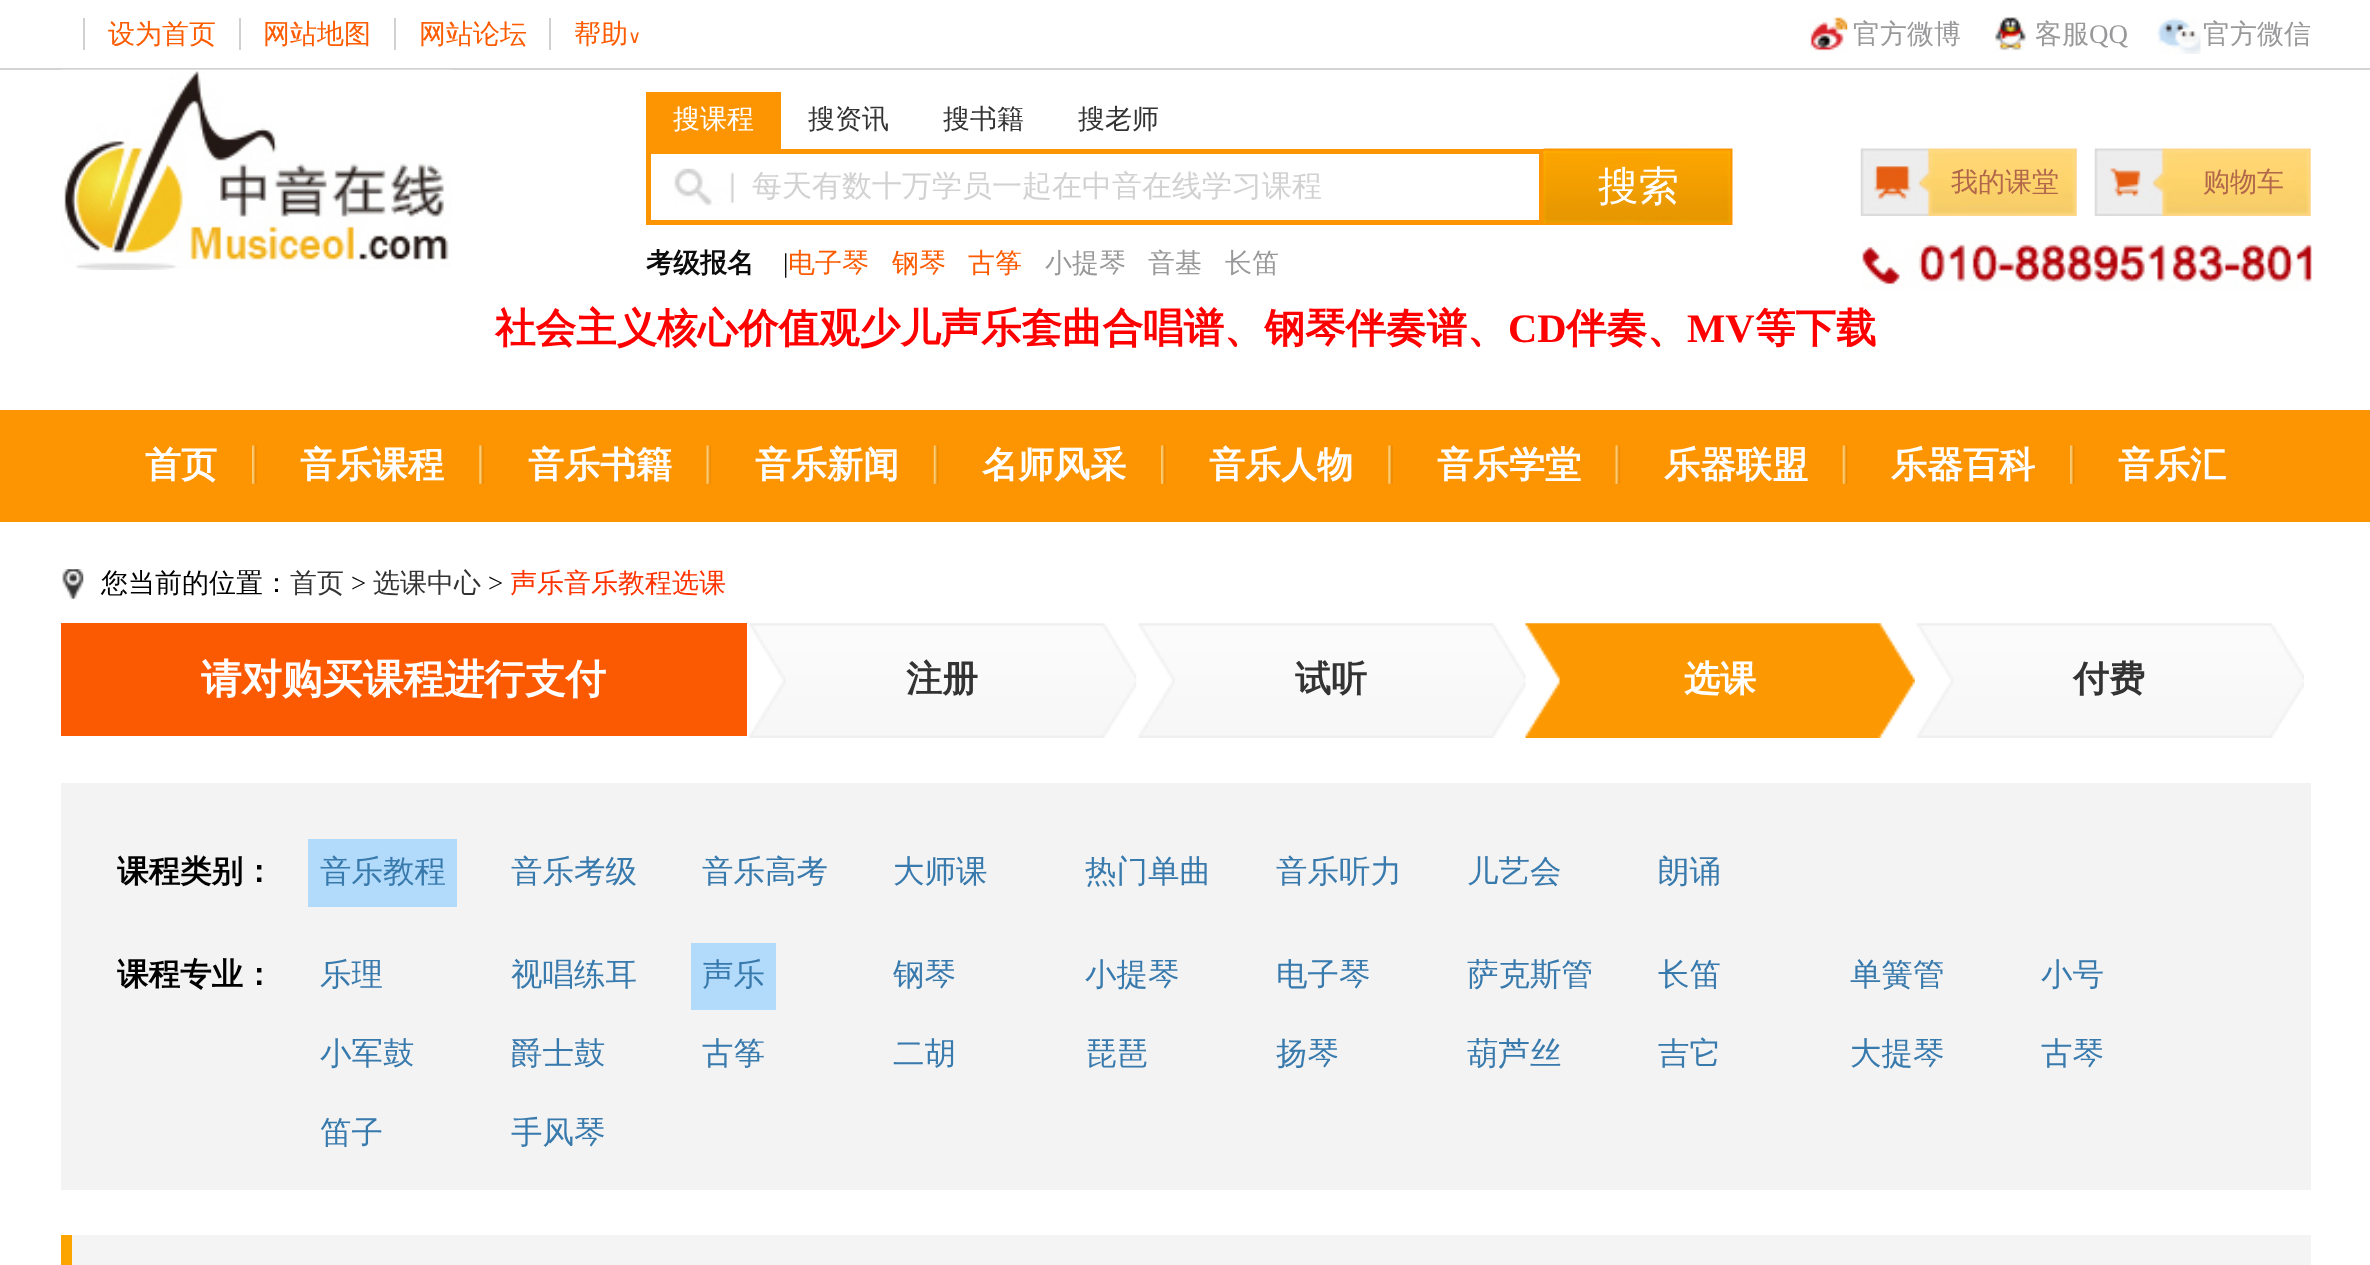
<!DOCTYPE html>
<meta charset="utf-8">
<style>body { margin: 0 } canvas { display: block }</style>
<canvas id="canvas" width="2370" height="1265"></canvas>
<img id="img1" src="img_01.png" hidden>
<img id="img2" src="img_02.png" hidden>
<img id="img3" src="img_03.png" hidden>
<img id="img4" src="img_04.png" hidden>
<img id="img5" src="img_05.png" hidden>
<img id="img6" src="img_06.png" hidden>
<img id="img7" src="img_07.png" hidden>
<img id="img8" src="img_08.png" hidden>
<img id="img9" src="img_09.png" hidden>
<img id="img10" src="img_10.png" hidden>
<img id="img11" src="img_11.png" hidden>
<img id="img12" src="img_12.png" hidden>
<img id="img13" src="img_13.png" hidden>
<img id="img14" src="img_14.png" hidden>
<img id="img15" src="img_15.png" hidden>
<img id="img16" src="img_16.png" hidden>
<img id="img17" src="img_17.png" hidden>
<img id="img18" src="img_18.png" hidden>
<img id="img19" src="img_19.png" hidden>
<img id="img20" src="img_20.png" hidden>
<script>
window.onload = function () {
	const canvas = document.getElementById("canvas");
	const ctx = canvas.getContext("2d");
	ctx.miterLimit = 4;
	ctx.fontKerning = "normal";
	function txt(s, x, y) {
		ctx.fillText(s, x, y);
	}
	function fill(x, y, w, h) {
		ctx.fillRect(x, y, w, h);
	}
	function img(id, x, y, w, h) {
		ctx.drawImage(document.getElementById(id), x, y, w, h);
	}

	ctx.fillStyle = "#FFFFFF";
	fill(0, 0, 2370, 1265);
	ctx.fillStyle = "#D3D3D3";
	fill(0, 68, 2370, 2);
	ctx.fillStyle = "#D1D1D1";
	fill(83, 18, 2, 32);
	fill(239, 18, 2, 32);
	fill(394, 18, 2, 32);
	fill(549, 18, 2, 32);
	img("img1", 1810, 17, 38, 37);
	img("img2", 1995, 17, 32, 34);
	img("img3", 2157, 17, 44, 37);
	img("img4", 61, 69, 391, 201);
	ctx.fillStyle = "#FD9502";
	fill(646, 92, 135, 57);
	img("img5", 674, 168, 60, 38);
	ctx.strokeStyle = "#FD9502";
	ctx.lineWidth = 5;
	ctx.strokeRect(648.5, 151.5, 893, 71);
	img("img6", 1543, 148, 190, 77);
	img("img7", 1860, 148, 217, 68);
	img("img8", 1872, 166, 40, 36);
	img("img9", 2094, 148, 217, 68);
	img("img10", 2109, 168, 32, 30);
	img("img11", 1862, 239, 450, 51);
	fill(0, 410, 2370, 112);
	img("img12", 252, 445, 5, 39);
	img("img13", 479, 445, 5, 39);
	img("img14", 706, 445, 5, 39);
	img("img15", 933, 445, 6, 39);
	img("img12", 1161, 445, 5, 39);
	img("img13", 1388, 445, 5, 39);
	img("img14", 1615, 445, 5, 39);
	img("img15", 1842, 445, 6, 39);
	img("img12", 2070, 445, 5, 39);
	img("img16", 62, 569, 22, 31);
	ctx.fillStyle = "#FC5A02";
	fill(61, 623, 686, 113);
	img("img17", 748, 623, 389, 115);
	img("img18", 1138, 623, 388, 115);
	img("img19", 1525, 623, 390, 115);
	img("img20", 1916, 623, 388, 115);
	ctx.fillStyle = "#F3F3F4";
	fill(61, 783, 2250, 407);
	ctx.fillStyle = "#B2DAFA";
	fill(308, 839, 149, 68);
	fill(691, 943, 85, 67);
	ctx.fillStyle = "#F4F4F4";
	fill(72, 1235, 2239, 30);
	ctx.fillStyle = "#FCA500";
	fill(61, 1235, 11, 30);
	ctx.font = "500 27px WenQuanYi Zen Hei";
	ctx.fillStyle = "#FC5B00";
	txt("设为首页", 108, 43);
	txt("网站地图", 263, 43);
	txt("网站论坛", 419, 43);
	txt("帮助", 574, 43);
	ctx.font = "18px DejaVu Sans";
	txt("∨", 628, 43);
	ctx.font = "500 27px WenQuanYi Zen Hei";
	ctx.fillStyle = "#99999B";
	txt("官方微博", 1853, 43);
	txt("客服", 2035, 43);
	ctx.font = "27px Liberation Serif";
	txt("QQ", 2089, 43);
	ctx.font = "500 27px WenQuanYi Zen Hei";
	txt("官方微信", 2203, 43);
	ctx.fillStyle = "#FFFFFF";
	txt("搜课程", 673, 128);
	ctx.fillStyle = "#333333";
	txt("搜资讯", 808, 128);
	txt("搜书籍", 943, 128);
	txt("搜老师", 1078, 128);
	ctx.font = "500 30px WenQuanYi Zen Hei";
	ctx.fillStyle = "#D2D2D2";
	txt("每天有数十万学员一起在中音在线学习课程", 752, 196);
	ctx.font = "500 40.5px WenQuanYi Zen Hei";
	ctx.fillStyle = "#FFFFFF";
	txt("搜索", 1598, 200);
	ctx.font = "bold 27px WenQuanYi Zen Hei";
	ctx.fillStyle = "#0C0C0C";
	txt("考级报名", 646, 272);
	ctx.font = "27px Liberation Serif";
	ctx.fillStyle = "#000000";
	txt("|", 783, 272);
	ctx.font = "500 27px WenQuanYi Zen Hei";
	ctx.fillStyle = "#FC5B00";
	txt("电子琴", 788, 272);
	txt("钢琴", 892, 272);
	txt("古筝", 968, 272);
	ctx.fillStyle = "#99999B";
	txt("小提琴", 1045, 272);
	txt("音基", 1148, 272);
	txt("长笛", 1225, 272);
	ctx.fillStyle = "#B2674A";
	txt("我的课堂", 1951, 191);
	txt("购物车", 2203, 191);
	ctx.font = "bold 40.5px WenQuanYi Zen Hei";
	ctx.fillStyle = "#FF0000";
	txt("社会主义核心价值观少儿声乐套曲合唱谱、钢琴伴奏谱、", 495, 342);
	ctx.font = "bold 40.5px Liberation Serif";
	txt("CD", 1508, 342);
	ctx.font = "bold 40.5px WenQuanYi Zen Hei";
	txt("伴奏、", 1566, 342);
	ctx.font = "bold 40.5px Liberation Serif";
	txt("MV", 1687, 342);
	ctx.font = "bold 40.5px WenQuanYi Zen Hei";
	txt("等下载", 1755, 342);
	ctx.font = "bold 36px WenQuanYi Zen Hei";
	ctx.fillStyle = "#FFFFFF";
	txt("首页", 145, 477);
	txt("音乐课程", 300, 477);
	txt("音乐书籍", 528, 477);
	txt("音乐新闻", 755, 477);
	txt("名师风采", 982, 477);
	txt("音乐人物", 1209, 477);
	txt("音乐学堂", 1437, 477);
	txt("乐器联盟", 1664, 477);
	txt("乐器百科", 1891, 477);
	txt("音乐汇", 2118, 477);
	ctx.font = "500 27px WenQuanYi Zen Hei";
	ctx.fillStyle = "#000000";
	txt("您当前的位置：", 101, 592);
	ctx.fillStyle = "#333333";
	txt("首页", 290, 592);
	ctx.font = "27px Liberation Serif";
	ctx.fillStyle = "#000000";
	txt(">", 351, 592);
	ctx.font = "500 27px WenQuanYi Zen Hei";
	ctx.fillStyle = "#333333";
	txt("选课中心", 373, 592);
	ctx.font = "27px Liberation Serif";
	ctx.fillStyle = "#000000";
	txt(">", 488, 592);
	ctx.font = "500 27px WenQuanYi Zen Hei";
	ctx.fillStyle = "#FF3300";
	txt("声乐音乐教程选课", 510, 592);
	ctx.font = "bold 40.5px WenQuanYi Zen Hei";
	ctx.fillStyle = "#FFFFFF";
	txt("请对购买课程进行支付", 201, 693);
	ctx.font = "bold 36px WenQuanYi Zen Hei";
	ctx.fillStyle = "#333333";
	txt("注册", 906, 691);
	txt("试听", 1295, 691);
	ctx.fillStyle = "#FFFFFF";
	txt("选课", 1684, 691);
	ctx.fillStyle = "#333333";
	txt("付费", 2073, 691);
	ctx.font = "bold 31.5px WenQuanYi Zen Hei";
	ctx.fillStyle = "#000000";
	txt("课程类别：", 117, 882);
	ctx.font = "500 31.5px WenQuanYi Zen Hei";
	ctx.fillStyle = "#397AAD";
	txt("音乐教程", 320, 882);
	txt("音乐考级", 511, 882);
	txt("音乐高考", 702, 882);
	txt("大师课", 893, 882);
	txt("热门单曲", 1085, 882);
	txt("音乐听力", 1276, 882);
	txt("儿艺会", 1467, 882);
	txt("朗诵", 1658, 882);
	ctx.font = "bold 31.5px WenQuanYi Zen Hei";
	ctx.fillStyle = "#000000";
	txt("课程专业：", 117, 985);
	ctx.font = "500 31.5px WenQuanYi Zen Hei";
	ctx.fillStyle = "#397AAD";
	txt("乐理", 320, 985);
	txt("视唱练耳", 511, 985);
	txt("声乐", 702, 985);
	txt("钢琴", 893, 985);
	txt("小提琴", 1085, 985);
	txt("电子琴", 1276, 985);
	txt("萨克斯管", 1467, 985);
	txt("长笛", 1658, 985);
	txt("单簧管", 1850, 985);
	txt("小号", 2041, 985);
	txt("小军鼓", 320, 1064);
	txt("爵士鼓", 511, 1064);
	txt("古筝", 702, 1064);
	txt("二胡", 893, 1064);
	txt("琵琶", 1085, 1064);
	txt("扬琴", 1276, 1064);
	txt("葫芦丝", 1467, 1064);
	txt("吉它", 1658, 1064);
	txt("大提琴", 1850, 1064);
	txt("古琴", 2041, 1064);
	txt("笛子", 320, 1143);
	txt("手风琴", 511, 1143);
};
</script>
